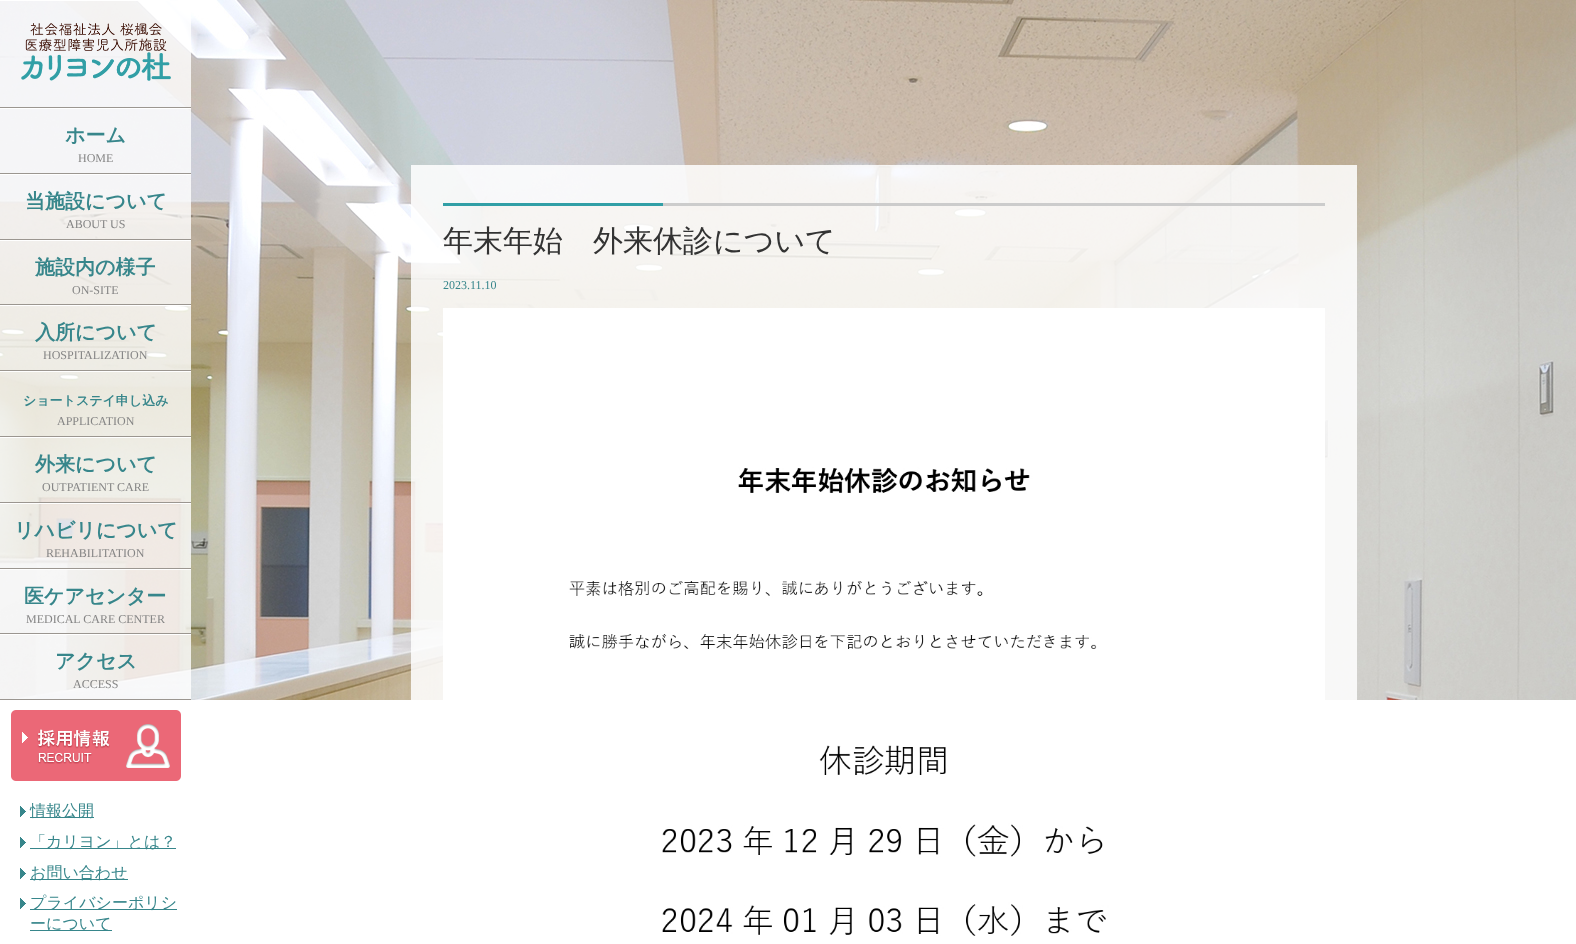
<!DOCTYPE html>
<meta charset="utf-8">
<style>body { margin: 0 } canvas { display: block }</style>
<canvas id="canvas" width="1576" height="944"></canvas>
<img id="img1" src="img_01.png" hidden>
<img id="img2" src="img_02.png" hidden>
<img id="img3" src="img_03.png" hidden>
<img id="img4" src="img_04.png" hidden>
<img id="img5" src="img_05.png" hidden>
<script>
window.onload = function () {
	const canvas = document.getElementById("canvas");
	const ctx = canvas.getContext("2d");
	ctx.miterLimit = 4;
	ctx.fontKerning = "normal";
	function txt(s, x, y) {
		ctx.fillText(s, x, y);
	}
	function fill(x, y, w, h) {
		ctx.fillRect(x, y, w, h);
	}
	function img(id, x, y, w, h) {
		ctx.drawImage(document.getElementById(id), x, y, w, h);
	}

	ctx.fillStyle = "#FFFFFF";
	fill(0, 0, 1576, 944);
	img("img1", 0, 0, 1576, 700);
	ctx.fillStyle = "rgba(255, 255, 255, 0.8)";
	fill(0, 1, 191, 106);
	ctx.fillStyle = "#FFFFFF";
	fill(0, 0, 170, 1);
	ctx.fillStyle = "#9B9690";
	fill(0, 107, 191, 1);
	img("img2", 21, 23, 150, 58);
	ctx.fillStyle = "rgba(255, 255, 255, 0.8)";
	fill(0, 109, 191, 64);
	ctx.fillStyle = "#FFFFFF";
	fill(0, 108, 191, 1);
	ctx.fillStyle = "#9B9690";
	fill(0, 173, 191, 1);
	ctx.fillStyle = "rgba(255, 255, 255, 0.8)";
	fill(0, 175, 191, 64);
	ctx.fillStyle = "#FFFFFF";
	fill(0, 174, 191, 1);
	ctx.fillStyle = "#9B9690";
	fill(0, 239, 191, 1);
	ctx.fillStyle = "rgba(255, 255, 255, 0.8)";
	fill(0, 241, 191, 63);
	ctx.fillStyle = "#FFFFFF";
	fill(0, 240, 191, 1);
	ctx.fillStyle = "#9B9690";
	fill(0, 304, 191, 1);
	ctx.fillStyle = "rgba(255, 255, 255, 0.8)";
	fill(0, 306, 191, 64);
	ctx.fillStyle = "#FFFFFF";
	fill(0, 305, 191, 1);
	ctx.fillStyle = "#9B9690";
	fill(0, 370, 191, 1);
	ctx.fillStyle = "rgba(255, 255, 255, 0.8)";
	fill(0, 372, 191, 64);
	ctx.fillStyle = "#FFFFFF";
	fill(0, 371, 191, 1);
	ctx.fillStyle = "#9B9690";
	fill(0, 436, 191, 1);
	ctx.fillStyle = "rgba(255, 255, 255, 0.8)";
	fill(0, 438, 191, 64);
	ctx.fillStyle = "#FFFFFF";
	fill(0, 437, 191, 1);
	ctx.fillStyle = "#9B9690";
	fill(0, 502, 191, 1);
	ctx.fillStyle = "rgba(255, 255, 255, 0.8)";
	fill(0, 504, 191, 64);
	ctx.fillStyle = "#FFFFFF";
	fill(0, 503, 191, 1);
	ctx.fillStyle = "#9B9690";
	fill(0, 568, 191, 1);
	ctx.fillStyle = "rgba(255, 255, 255, 0.8)";
	fill(0, 570, 191, 63);
	ctx.fillStyle = "#FFFFFF";
	fill(0, 569, 191, 1);
	ctx.fillStyle = "#9B9690";
	fill(0, 633, 191, 1);
	ctx.fillStyle = "rgba(255, 255, 255, 0.8)";
	fill(0, 635, 191, 64);
	ctx.fillStyle = "#FFFFFF";
	fill(0, 634, 191, 1);
	ctx.fillStyle = "#9B9690";
	fill(0, 699, 191, 1);
	ctx.fillStyle = "rgba(255, 255, 255, 0.85)";
	fill(411, 165, 946, 535);
	ctx.fillStyle = "#CCCCCC";
	fill(663, 203, 662, 3);
	ctx.fillStyle = "#319FA6";
	fill(443, 203, 220, 3);
	img("img3", 443, 308, 882, 628);
	img("img4", 11, 710, 170, 71);
	img("img5", 20, 806, 6, 11);
	ctx.fillStyle = "#37868B";
	fill(30, 817, 64, 1);
	img("img5", 20, 837, 6, 11);
	fill(30, 848, 146, 1);
	img("img5", 20, 868, 6, 11);
	fill(30, 879, 98, 1);
	img("img5", 20, 898, 6, 11);
	fill(30, 909, 147, 1);
	fill(30, 930, 82, 1);
	ctx.font = "bold 20px WenQuanYi Zen Hei";
	txt("ホーム", 65, 142);
	ctx.font = "12px Liberation Serif";
	ctx.fillStyle = "#858585";
	txt("HOME", 78, 162);
	ctx.font = "bold 20px WenQuanYi Zen Hei";
	ctx.fillStyle = "#37868B";
	txt("当施設について", 25, 208);
	ctx.font = "12px Liberation Serif";
	ctx.fillStyle = "#858585";
	txt("ABOUT US", 66, 228);
	ctx.font = "bold 20px WenQuanYi Zen Hei";
	ctx.fillStyle = "#37868B";
	txt("施設内の様子", 35, 274);
	ctx.font = "12px Liberation Serif";
	ctx.fillStyle = "#858585";
	txt("ON-SITE", 72, 294);
	ctx.font = "bold 20px WenQuanYi Zen Hei";
	ctx.fillStyle = "#37868B";
	txt("入所について", 35, 339);
	ctx.font = "12px Liberation Serif";
	ctx.fillStyle = "#858585";
	txt("HOSPITALIZATION", 43, 359);
	ctx.font = "bold 13px WenQuanYi Zen Hei";
	ctx.fillStyle = "#37868B";
	txt("ショートステイ申し込み", 23, 405);
	ctx.font = "12px Liberation Serif";
	ctx.fillStyle = "#858585";
	txt("APPLICATION", 57, 425);
	ctx.font = "bold 20px WenQuanYi Zen Hei";
	ctx.fillStyle = "#37868B";
	txt("外来について", 35, 471);
	ctx.font = "12px Liberation Serif";
	ctx.fillStyle = "#858585";
	txt("OUTPATIENT CARE", 42, 491);
	ctx.font = "bold 20px WenQuanYi Zen Hei";
	ctx.fillStyle = "#37868B";
	txt("リハビリについて", 14, 537);
	ctx.font = "12px Liberation Serif";
	ctx.fillStyle = "#858585";
	txt("REHABILITATION", 46, 557);
	ctx.font = "bold 20px WenQuanYi Zen Hei";
	ctx.fillStyle = "#37868B";
	txt("医ケアセンター", 24, 603);
	ctx.font = "12px Liberation Serif";
	ctx.fillStyle = "#858585";
	txt("MEDICAL CARE CENTER", 26, 623);
	ctx.font = "bold 20px WenQuanYi Zen Hei";
	ctx.fillStyle = "#37868B";
	txt("アクセス", 55, 668);
	ctx.font = "12px Liberation Serif";
	ctx.fillStyle = "#858585";
	txt("ACCESS", 73, 688);
	ctx.font = "500 30px WenQuanYi Zen Hei";
	ctx.fillStyle = "#333333";
	txt("年末年始　外来休診について", 443, 251);
	ctx.font = "12px Liberation Serif";
	ctx.fillStyle = "#37868B";
	txt("2023.11.10", 443, 289);
	ctx.font = "500 16px WenQuanYi Zen Hei";
	txt("情報公開", 30, 816);
	txt("「カリヨン」とは？", 30, 847);
	txt("お問い合わせ", 30, 878);
	txt("プライバシーポリシ", 30, 908);
	txt("ーについて", 30, 929);
};
</script>
